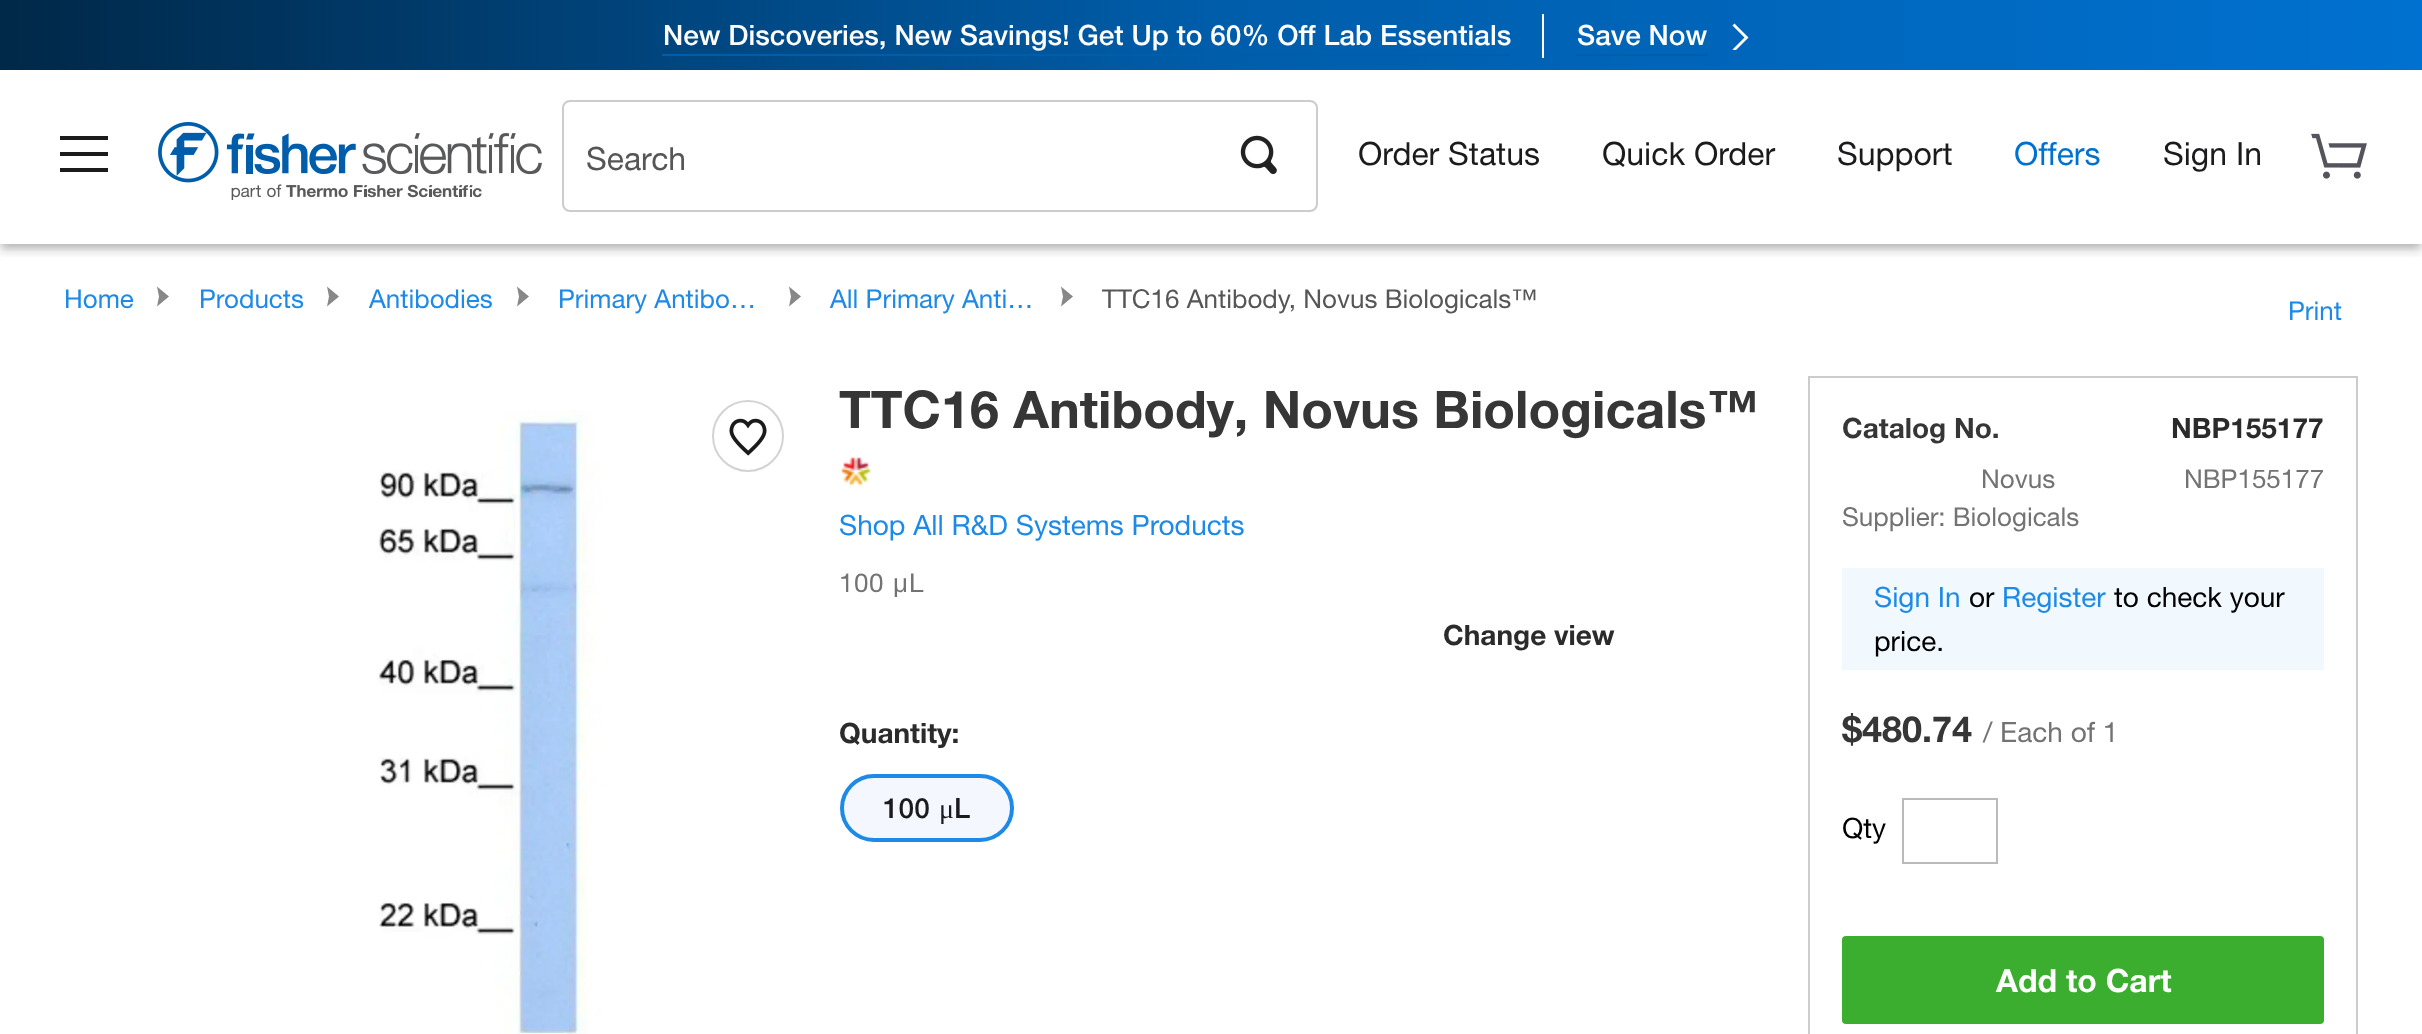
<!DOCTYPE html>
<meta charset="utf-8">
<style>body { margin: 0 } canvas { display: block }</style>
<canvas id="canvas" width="2422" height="1034"></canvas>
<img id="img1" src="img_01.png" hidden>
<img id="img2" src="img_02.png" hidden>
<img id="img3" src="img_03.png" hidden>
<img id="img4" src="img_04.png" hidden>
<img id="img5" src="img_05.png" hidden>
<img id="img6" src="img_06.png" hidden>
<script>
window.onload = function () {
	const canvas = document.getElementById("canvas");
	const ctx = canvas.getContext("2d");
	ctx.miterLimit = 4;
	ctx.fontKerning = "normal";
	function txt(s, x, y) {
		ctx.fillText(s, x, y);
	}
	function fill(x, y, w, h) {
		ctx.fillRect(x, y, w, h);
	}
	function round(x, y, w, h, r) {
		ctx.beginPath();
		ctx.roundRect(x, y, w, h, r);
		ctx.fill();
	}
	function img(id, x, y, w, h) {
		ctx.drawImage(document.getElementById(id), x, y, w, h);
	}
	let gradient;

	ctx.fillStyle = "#FFFFFF";
	fill(0, 0, 2422, 1034);
	gradient = ctx.createLinearGradient(2422, 36, 0, 34);
	gradient.addColorStop(0, "#0071D0");
	gradient.addColorStop(0.5, "#005DAA");
	gradient.addColorStop(1, "#002848");
	ctx.fillStyle = gradient;
	fill(0, 0, 2422, 70);
	ctx.fillStyle = "#005DAA";
	fill(662, 54, 848, 2);
	ctx.fillStyle = "#FFFFFF";
	fill(1542, 14, 2, 44);
	ctx.fillStyle = "#005DAA";
	fill(1576, 54, 132, 2);
	ctx.save();
	ctx.beginPath();
	ctx.rect(1724, 14, 36, 36);
	ctx.clip();
	ctx.fillStyle = "#FFFFFF";
	ctx.beginPath();
	ctx.moveTo(1732.5, 25.5);
	ctx.lineTo(1734.5, 23.5);
	ctx.lineTo(1748.5, 37.5);
	ctx.lineTo(1734.5, 51.5);
	ctx.lineTo(1732.5, 49.5);
	ctx.lineTo(1744.5, 37.5);
	ctx.closePath();
	ctx.fill("evenodd");
	ctx.restore();
	ctx.save();
	ctx.beginPath();
	ctx.rect(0, 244, 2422, 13);
	ctx.clip();
	ctx.fillStyle = "rgba(0, 0, 0, 0.14)";
	ctx.filter = "blur(5px)";
	ctx.beginPath();
	ctx.rect(0, 78, 2422, 174);
	ctx.fill();
	ctx.filter = "none";
	ctx.restore();
	ctx.save();
	ctx.beginPath();
	ctx.rect(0, 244, 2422, 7);
	ctx.clip();
	ctx.fillStyle = "rgba(0, 0, 0, 0.2)";
	ctx.filter = "blur(4px)";
	ctx.beginPath();
	ctx.rect(2, 76, 2418, 170);
	ctx.fill();
	ctx.filter = "none";
	ctx.restore();
	ctx.fillStyle = "#1B1B1D";
	fill(60, 152, 48, 4);
	fill(60, 136, 48, 4);
	fill(60, 168, 48, 4);
	img("img1", 158, 122, 384, 78);
	ctx.beginPath();
	ctx.roundRect(563, 101, 754, 110, 7);
	ctx.strokeStyle = "#CCCCCC";
	ctx.lineWidth = 2;
	ctx.stroke();
	img("img2", 1240, 135, 37, 39);
	img("img3", 2311, 133, 56, 46);
	ctx.fillStyle = "#888888";
	ctx.beginPath();
	ctx.moveTo(157, 286.5);
	ctx.lineTo(159, 296.5);
	ctx.lineTo(157, 306.5);
	ctx.lineTo(169, 296.5);
	ctx.closePath();
	ctx.fill();
	ctx.beginPath();
	ctx.moveTo(327, 286.5);
	ctx.lineTo(329, 296.5);
	ctx.lineTo(327, 306.5);
	ctx.lineTo(339, 296.5);
	ctx.closePath();
	ctx.fill();
	ctx.beginPath();
	ctx.moveTo(517, 286.5);
	ctx.lineTo(519, 296.5);
	ctx.lineTo(517, 306.5);
	ctx.lineTo(529, 296.5);
	ctx.closePath();
	ctx.fill();
	ctx.beginPath();
	ctx.moveTo(789, 286.5);
	ctx.lineTo(791, 296.5);
	ctx.lineTo(789, 306.5);
	ctx.lineTo(801, 296.5);
	ctx.closePath();
	ctx.fill();
	ctx.beginPath();
	ctx.moveTo(1061, 286.5);
	ctx.lineTo(1063, 296.5);
	ctx.lineTo(1061, 306.5);
	ctx.lineTo(1073, 296.5);
	ctx.closePath();
	ctx.fill();
	img("img4", 377, 410, 226, 624);
	ctx.beginPath();
	ctx.arc(748, 436, 35, 0, Math.PI * 2);
	ctx.strokeStyle = "#D3D3D3";
	ctx.stroke();
	img("img5", 729, 418, 38, 38);
	img("img6", 841, 457, 30, 30);
	ctx.fillStyle = "#F5F7FF";
	ctx.beginPath();
	ctx.roundRect(842, 776, 170, 64, 32);
	ctx.fill();
	ctx.strokeStyle = "#1E8AE7";
	ctx.lineWidth = 4;
	ctx.stroke();
	ctx.strokeStyle = "#CCCCCC";
	ctx.lineWidth = 2;
	ctx.strokeRect(1809, 377, 548, 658);
	ctx.fillStyle = "#F1F9FF";
	fill(1842, 568, 482, 102);
	ctx.strokeStyle = "#BBB9B9";
	ctx.strokeRect(1903, 799, 94, 64);
	ctx.fillStyle = "#3BAD2F";
	round(1842, 936, 482, 88, 4);
	ctx.font = "500 28px Helvetica Neue";
	ctx.fillStyle = "#FFFFFF";
	txt("New Discoveries, New Savings! Get Up to 60% Off Lab Essentials", 663, 45);
	txt("Save Now", 1577, 45);
	ctx.font = "32px Helvetica Neue";
	ctx.fillStyle = "#565656";
	txt("Search", 586, 170);
	ctx.fillStyle = "#1B1B1D";
	txt("Order Status", 1358, 165);
	txt("Quick Order", 1602, 165);
	txt("Support", 1837, 165);
	ctx.fillStyle = "#0071D0";
	txt("Offers", 2014, 165);
	ctx.fillStyle = "#1B1B1D";
	txt("Sign In", 2163, 165);
	ctx.font = "26px Helvetica Neue";
	ctx.fillStyle = "#1E8AE7";
	txt("Home", 64, 308);
	txt("Products", 199, 308);
	txt("Antibodies", 369, 308);
	txt("Primary Antibo…", 558, 308);
	txt("All Primary Anti…", 830, 308);
	ctx.fillStyle = "#565656";
	txt("TTC16 Antibody, Novus Biologicals™", 1102, 308);
	ctx.fillStyle = "#1E8AE7";
	txt("Print", 2288, 320);
	ctx.font = "bold 52px Helvetica Neue";
	ctx.fillStyle = "#363636";
	txt("TTC16 Antibody, Novus Biologicals™", 839, 428);
	ctx.font = "28px Helvetica Neue";
	ctx.fillStyle = "#1E8AE7";
	txt("Shop All R&D Systems Products", 839, 535);
	ctx.letterSpacing = "0.5px";
	ctx.font = "26px Helvetica Neue";
	ctx.fillStyle = "#737373";
	txt("100", 839, 592);
	ctx.font = "26px Liberation Sans";
	txt("μ", 893, 592);
	ctx.font = "26px Helvetica Neue";
	txt("L", 909, 592);
	ctx.letterSpacing = "0px";
	ctx.font = "bold 28px Helvetica Neue";
	ctx.fillStyle = "#2B2B2B";
	txt("Change view", 1443, 645);
	txt("Quantity:", 839, 743);
	ctx.font = "500 28px Helvetica Neue";
	ctx.fillStyle = "#1B1B1D";
	txt("100", 883, 818);
	ctx.font = "28px Liberation Serif";
	txt("μ", 939, 818);
	ctx.font = "500 28px Helvetica Neue";
	txt("L", 954, 818);
	ctx.font = "bold 28px Helvetica Neue";
	ctx.fillStyle = "#363636";
	txt("Catalog No.", 1842, 438);
	ctx.fillStyle = "#2B2B2B";
	txt("NBP155177", 2171, 438);
	ctx.font = "26px Helvetica Neue";
	ctx.fillStyle = "#737373";
	txt("Novus", 1981, 488);
	txt("Supplier: Biologicals", 1842, 526);
	txt("NBP155177", 2184, 488);
	ctx.font = "28px Helvetica Neue";
	ctx.fillStyle = "#1E8AE7";
	txt("Sign In", 1874, 607);
	ctx.fillStyle = "#000000";
	txt("or", 1969, 607);
	ctx.fillStyle = "#1E8AE7";
	txt("Register", 2002, 607);
	ctx.fillStyle = "#000000";
	txt("to check your", 2114, 607);
	txt("price.", 1874, 651);
	ctx.font = "bold 36px Helvetica Neue";
	ctx.fillStyle = "#363636";
	txt("$480.74", 1842, 742);
	ctx.font = "28px Helvetica Neue";
	ctx.fillStyle = "#737373";
	txt("/ Each of 1", 1983, 742);
	ctx.fillStyle = "#000000";
	txt("Qty", 1842, 838);
	ctx.font = "bold 32px Helvetica Neue";
	ctx.fillStyle = "#FFFFFF";
	txt("Add to Cart", 1996, 992);
};
</script>
